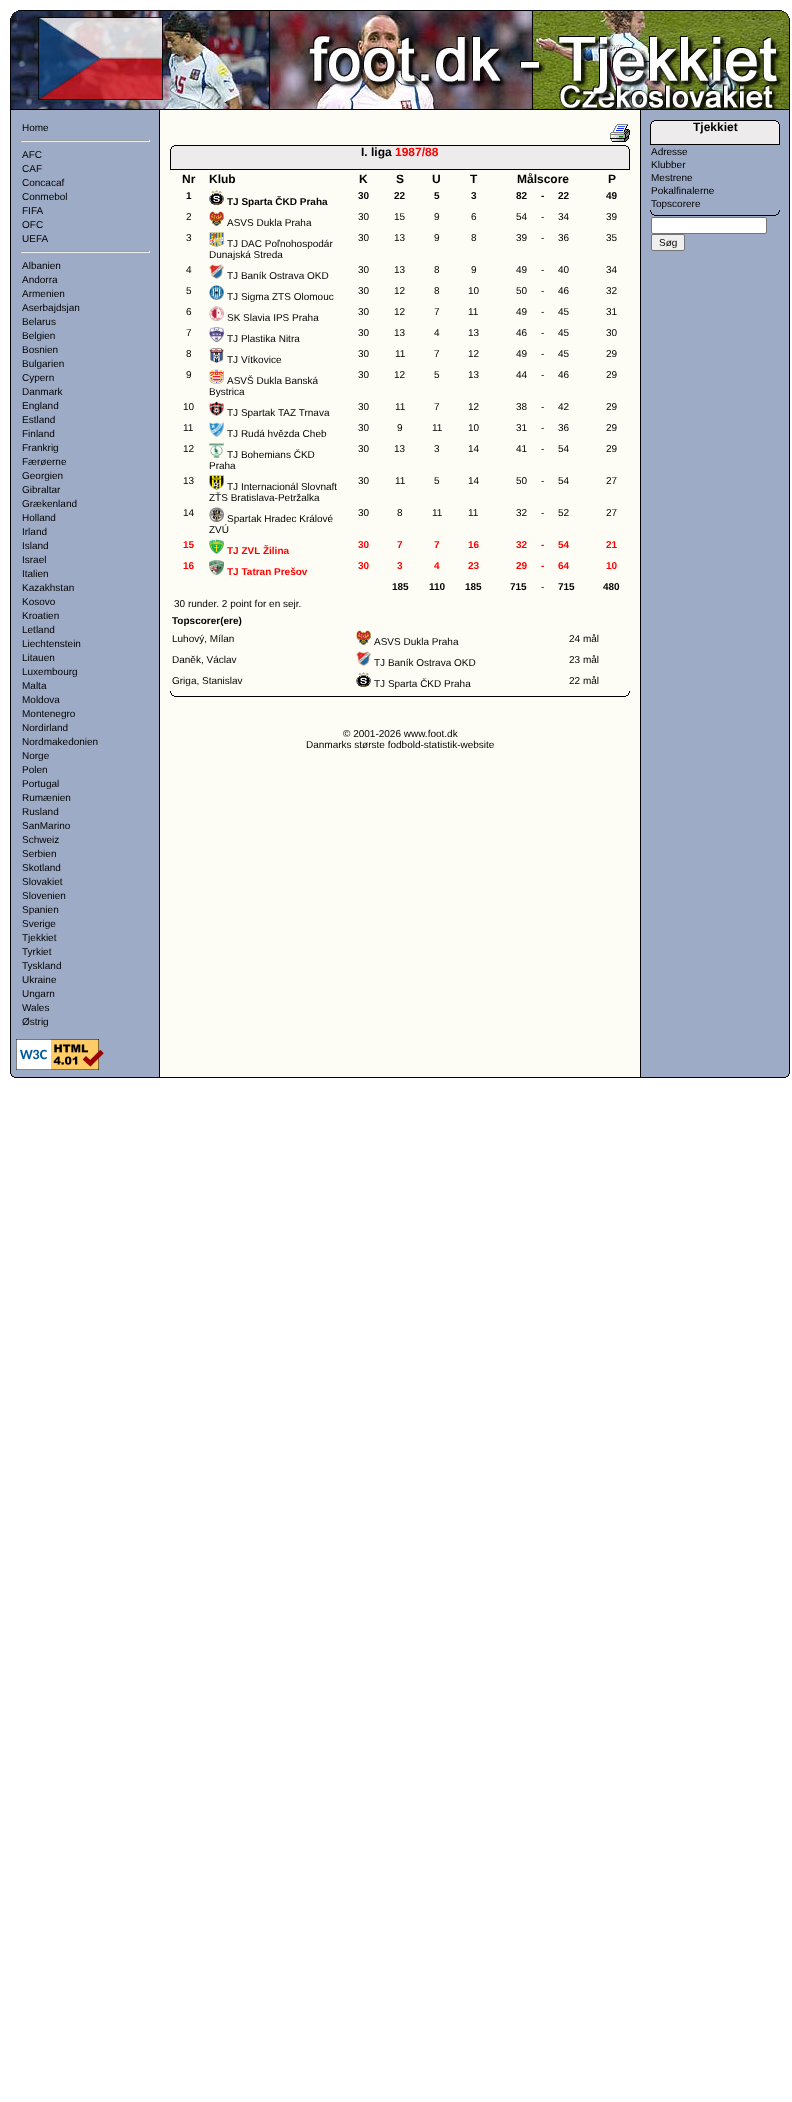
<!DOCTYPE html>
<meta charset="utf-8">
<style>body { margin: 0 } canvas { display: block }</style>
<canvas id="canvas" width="792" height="2102"></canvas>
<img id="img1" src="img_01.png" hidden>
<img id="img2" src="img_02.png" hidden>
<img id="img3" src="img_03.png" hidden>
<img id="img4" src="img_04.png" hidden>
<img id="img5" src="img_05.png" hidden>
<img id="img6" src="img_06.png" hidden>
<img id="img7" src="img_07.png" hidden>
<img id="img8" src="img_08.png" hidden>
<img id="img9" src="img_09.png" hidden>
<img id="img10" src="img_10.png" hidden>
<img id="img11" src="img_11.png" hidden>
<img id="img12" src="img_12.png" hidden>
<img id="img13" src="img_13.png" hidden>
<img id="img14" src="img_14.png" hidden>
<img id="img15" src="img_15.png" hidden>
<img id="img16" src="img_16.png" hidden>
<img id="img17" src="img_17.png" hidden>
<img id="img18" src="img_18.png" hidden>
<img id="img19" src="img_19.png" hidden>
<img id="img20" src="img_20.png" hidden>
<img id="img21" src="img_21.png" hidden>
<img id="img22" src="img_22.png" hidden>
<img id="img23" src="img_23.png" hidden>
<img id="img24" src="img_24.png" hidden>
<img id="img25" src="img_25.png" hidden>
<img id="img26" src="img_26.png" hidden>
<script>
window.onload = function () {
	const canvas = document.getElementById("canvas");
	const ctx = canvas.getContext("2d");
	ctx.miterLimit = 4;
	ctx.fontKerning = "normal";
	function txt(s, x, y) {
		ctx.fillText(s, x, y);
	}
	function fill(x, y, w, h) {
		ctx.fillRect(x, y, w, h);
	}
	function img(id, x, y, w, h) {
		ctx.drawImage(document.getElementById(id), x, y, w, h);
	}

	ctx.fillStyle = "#FFFFFF";
	fill(0, 0, 792, 2102);
	img("img1", 10, 110, 780, 967);
	img("img2", 10, 10, 780, 100);
	ctx.fillStyle = "#9F9F9F";
	fill(20, 140, 130, 1);
	ctx.fillStyle = "#EEEEEE";
	fill(149, 140, 1, 2);
	fill(20, 141, 130, 1);
	ctx.fillStyle = "#9F9F9F";
	fill(20, 140, 1, 2);
	fill(20, 251, 130, 1);
	ctx.fillStyle = "#EEEEEE";
	fill(149, 251, 1, 2);
	fill(20, 252, 130, 1);
	ctx.fillStyle = "#9F9F9F";
	fill(20, 251, 1, 2);
	img("img3", 610, 124, 20, 18);
	img("img4", 170, 145, 460, 25);
	img("img5", 209, 190, 15, 15);
	img("img6", 209, 211, 15, 15);
	img("img7", 209, 232, 15, 15);
	img("img8", 209, 264, 15, 15);
	img("img9", 209, 285, 15, 15);
	img("img10", 209, 306, 15, 15);
	img("img11", 209, 327, 15, 15);
	img("img12", 209, 348, 15, 15);
	img("img13", 209, 369, 15, 15);
	img("img14", 209, 401, 15, 15);
	img("img15", 209, 422, 15, 15);
	img("img16", 209, 443, 15, 15);
	img("img17", 209, 475, 15, 15);
	img("img18", 209, 507, 15, 15);
	img("img19", 209, 539, 15, 15);
	img("img20", 209, 560, 15, 15);
	img("img21", 356, 630, 15, 15);
	img("img8", 356, 651, 15, 15);
	img("img5", 356, 672, 15, 15);
	img("img22", 170, 691, 460, 6);
	img("img23", 650, 120, 130, 25);
	img("img24", 650, 210, 130, 6);
	ctx.fillStyle = "#FFFFFF";
	ctx.beginPath();
	ctx.roundRect(651.5, 217.5, 115, 16, 1.5);
	ctx.fill();
	ctx.strokeStyle = "#767676";
	ctx.stroke();
	ctx.fillStyle = "#EFEFEF";
	ctx.beginPath();
	ctx.roundRect(651.5, 234.5, 33, 16, 1.5);
	ctx.fill();
	ctx.stroke();
	img("img25", 16, 1039, 88, 31);
	img("img26", 10, 1074, 780, 4);
	ctx.font = "10px Liberation Sans";
	ctx.fillStyle = "#000000";
	txt("Home", 22, 131);
	txt("AFC", 22, 158);
	txt("CAF", 22, 172);
	txt("Concacaf", 22, 186);
	txt("Conmebol", 22, 200);
	txt("FIFA", 22, 214);
	txt("OFC", 22, 228);
	txt("UEFA", 22, 242);
	txt("Albanien", 22, 269);
	txt("Andorra", 22, 283);
	txt("Armenien", 22, 297);
	txt("Aserbajdsjan", 22, 311);
	txt("Belarus", 22, 325);
	txt("Belgien", 22, 339);
	txt("Bosnien", 22, 353);
	txt("Bulgarien", 22, 367);
	txt("Cypern", 22, 381);
	txt("Danmark", 22, 395);
	txt("England", 22, 409);
	txt("Estland", 22, 423);
	txt("Finland", 22, 437);
	txt("Frankrig", 22, 451);
	txt("Færøerne", 22, 465);
	txt("Georgien", 22, 479);
	txt("Gibraltar", 22, 493);
	txt("Grækenland", 22, 507);
	txt("Holland", 22, 521);
	txt("Irland", 22, 535);
	txt("Island", 22, 549);
	txt("Israel", 22, 563);
	txt("Italien", 22, 577);
	txt("Kazakhstan", 22, 591);
	txt("Kosovo", 22, 605);
	txt("Kroatien", 22, 619);
	txt("Letland", 22, 633);
	txt("Liechtenstein", 22, 647);
	txt("Litauen", 22, 661);
	txt("Luxembourg", 22, 675);
	txt("Malta", 22, 689);
	txt("Moldova", 22, 703);
	txt("Montenegro", 22, 717);
	txt("Nordirland", 22, 731);
	txt("Nordmakedonien", 22, 745);
	txt("Norge", 22, 759);
	txt("Polen", 22, 773);
	txt("Portugal", 22, 787);
	txt("Rumænien", 22, 801);
	txt("Rusland", 22, 815);
	txt("SanMarino", 22, 829);
	txt("Schweiz", 22, 843);
	txt("Serbien", 22, 857);
	txt("Skotland", 22, 871);
	txt("Slovakiet", 22, 885);
	txt("Slovenien", 22, 899);
	txt("Spanien", 22, 913);
	txt("Sverige", 22, 927);
	txt("Tjekkiet", 22, 941);
	txt("Tyrkiet", 22, 955);
	txt("Tyskland", 22, 969);
	txt("Ukraine", 22, 983);
	txt("Ungarn", 22, 997);
	txt("Wales", 22, 1011);
	txt("Østrig", 22, 1025);
	ctx.font = "bold 12px Liberation Sans";
	txt("I. liga", 361, 156);
	ctx.fillStyle = "#FF0000";
	txt("1987/88", 395, 156);
	ctx.fillStyle = "#000000";
	txt("Nr", 182, 183);
	txt("Klub", 209, 183);
	txt("K", 359, 183);
	txt("S", 396, 183);
	txt("U", 432, 183);
	txt("T", 470, 183);
	txt("Målscore", 517, 183);
	txt("P", 608, 183);
	ctx.font = "bold 10px Liberation Sans";
	txt("1", 186, 199);
	txt("TJ Sparta ČKD Praha", 227, 205);
	txt("30", 358, 199);
	txt("22", 394, 199);
	txt("5", 434, 199);
	txt("3", 471, 199);
	txt("82", 516, 199);
	txt("-", 541, 199);
	txt("22", 558, 199);
	txt("49", 606, 199);
	ctx.font = "10px Liberation Sans";
	txt("2", 186, 220);
	txt("30", 358, 220);
	txt("15", 394, 220);
	txt("9", 434, 220);
	txt("6", 471, 220);
	txt("54", 516, 220);
	txt("-", 541, 220);
	txt("34", 558, 220);
	txt("39", 606, 220);
	txt("ASVS Dukla Praha", 227, 226);
	txt("3", 186, 241);
	txt("30", 358, 241);
	txt("13", 394, 241);
	txt("9", 434, 241);
	txt("8", 471, 241);
	txt("39", 516, 241);
	txt("-", 541, 241);
	txt("36", 558, 241);
	txt("35", 606, 241);
	txt("TJ DAC Poľnohospodár", 227, 247);
	txt("Dunajská Streda", 209, 258);
	txt("4", 186, 273);
	txt("30", 358, 273);
	txt("13", 394, 273);
	txt("8", 434, 273);
	txt("9", 471, 273);
	txt("49", 516, 273);
	txt("-", 541, 273);
	txt("40", 558, 273);
	txt("34", 606, 273);
	txt("TJ Baník Ostrava OKD", 227, 279);
	txt("5", 186, 294);
	txt("30", 358, 294);
	txt("12", 394, 294);
	txt("8", 434, 294);
	txt("10", 468, 294);
	txt("50", 516, 294);
	txt("-", 541, 294);
	txt("46", 558, 294);
	txt("32", 606, 294);
	txt("TJ Sigma ZTS Olomouc", 227, 300);
	txt("6", 186, 315);
	txt("30", 358, 315);
	txt("12", 394, 315);
	txt("7", 434, 315);
	txt("11", 468, 315);
	txt("49", 516, 315);
	txt("-", 541, 315);
	txt("45", 558, 315);
	txt("31", 606, 315);
	txt("SK Slavia IPS Praha", 227, 321);
	txt("7", 186, 336);
	txt("30", 358, 336);
	txt("13", 394, 336);
	txt("4", 434, 336);
	txt("13", 468, 336);
	txt("46", 516, 336);
	txt("-", 541, 336);
	txt("45", 558, 336);
	txt("30", 606, 336);
	txt("TJ Plastika Nitra", 227, 342);
	txt("8", 186, 357);
	txt("30", 358, 357);
	txt("11", 395, 357);
	txt("7", 434, 357);
	txt("12", 468, 357);
	txt("49", 516, 357);
	txt("-", 541, 357);
	txt("45", 558, 357);
	txt("29", 606, 357);
	txt("TJ Vítkovice", 227, 363);
	txt("9", 186, 378);
	txt("ASVŠ Dukla Banská", 227, 384);
	txt("Bystrica", 209, 395);
	txt("30", 358, 378);
	txt("12", 394, 378);
	txt("5", 434, 378);
	txt("13", 468, 378);
	txt("44", 516, 378);
	txt("-", 541, 378);
	txt("46", 558, 378);
	txt("29", 606, 378);
	txt("10", 183, 410);
	txt("30", 358, 410);
	txt("11", 395, 410);
	txt("7", 434, 410);
	txt("12", 468, 410);
	txt("38", 516, 410);
	txt("-", 541, 410);
	txt("42", 558, 410);
	txt("29", 606, 410);
	txt("TJ Spartak TAZ Trnava", 227, 416);
	txt("11", 183, 431);
	txt("30", 358, 431);
	txt("9", 397, 431);
	txt("11", 432, 431);
	txt("10", 468, 431);
	txt("31", 516, 431);
	txt("-", 541, 431);
	txt("36", 558, 431);
	txt("29", 606, 431);
	txt("TJ Rudá hvězda Cheb", 227, 437);
	txt("12", 183, 452);
	txt("TJ Bohemians ČKD", 227, 458);
	txt("Praha", 209, 469);
	txt("30", 358, 452);
	txt("13", 394, 452);
	txt("3", 434, 452);
	txt("14", 468, 452);
	txt("41", 516, 452);
	txt("-", 541, 452);
	txt("54", 558, 452);
	txt("29", 606, 452);
	txt("13", 183, 484);
	txt("30", 358, 484);
	txt("11", 395, 484);
	txt("5", 434, 484);
	txt("14", 468, 484);
	txt("50", 516, 484);
	txt("-", 541, 484);
	txt("54", 558, 484);
	txt("27", 606, 484);
	txt("TJ Internacionál Slovnaft", 227, 490);
	txt("ZŤS Bratislava-Petržalka", 209, 501);
	txt("14", 183, 516);
	txt("30", 358, 516);
	txt("8", 397, 516);
	txt("11", 432, 516);
	txt("11", 468, 516);
	txt("32", 516, 516);
	txt("-", 541, 516);
	txt("52", 558, 516);
	txt("27", 606, 516);
	txt("Spartak Hradec Králové", 227, 522);
	txt("ZVÚ", 209, 533);
	ctx.font = "bold 10px Liberation Sans";
	ctx.fillStyle = "#FF0000";
	txt("15", 183, 548);
	txt("TJ ZVL Žilina", 227, 554);
	txt("30", 358, 548);
	txt("7", 397, 548);
	txt("7", 434, 548);
	txt("16", 468, 548);
	txt("32", 516, 548);
	txt("-", 541, 548);
	txt("54", 558, 548);
	txt("21", 606, 548);
	txt("16", 183, 569);
	txt("30", 358, 569);
	txt("3", 397, 569);
	txt("4", 434, 569);
	txt("23", 468, 569);
	txt("29", 516, 569);
	txt("-", 541, 569);
	txt("64", 558, 569);
	txt("10", 606, 569);
	txt("TJ Tatran Prešov", 227, 575);
	ctx.fillStyle = "#000000";
	txt("185", 392, 590);
	txt("110", 429, 590);
	txt("185", 465, 590);
	txt("715", 510, 590);
	ctx.font = "10px Liberation Sans";
	txt("-", 541, 590);
	ctx.font = "bold 10px Liberation Sans";
	txt("715", 558, 590);
	txt("480", 603, 590);
	ctx.font = "10px Liberation Sans";
	txt("30 runder. 2 point for en sejr.", 174, 607);
	ctx.font = "bold 10px Liberation Sans";
	txt("Topscorer(ere)", 172, 624);
	ctx.font = "10px Liberation Sans";
	txt("Luhový, Mílan", 172, 642);
	txt("ASVS Dukla Praha", 374, 645);
	txt("24 mål", 569, 642);
	txt("Daněk, Václav", 172, 663);
	txt("TJ Baník Ostrava OKD", 374, 666);
	txt("23 mål", 569, 663);
	txt("Griga, Stanislav", 172, 684);
	txt("TJ Sparta ČKD Praha", 374, 687);
	txt("22 mål", 569, 684);
	txt("© 2001-2026 www.foot.dk", 343, 737);
	txt("Danmarks største fodbold-statistik-website", 306, 748);
	ctx.font = "bold 12px Liberation Sans";
	txt("Tjekkiet", 693, 131);
	ctx.font = "10px Liberation Sans";
	txt("Adresse", 651, 155);
	txt("Klubber", 651, 168);
	txt("Mestrene", 651, 181);
	txt("Pokalfinalerne", 651, 194);
	txt("Topscorere", 651, 207);
	txt("Søg", 659, 246);
};
</script>
